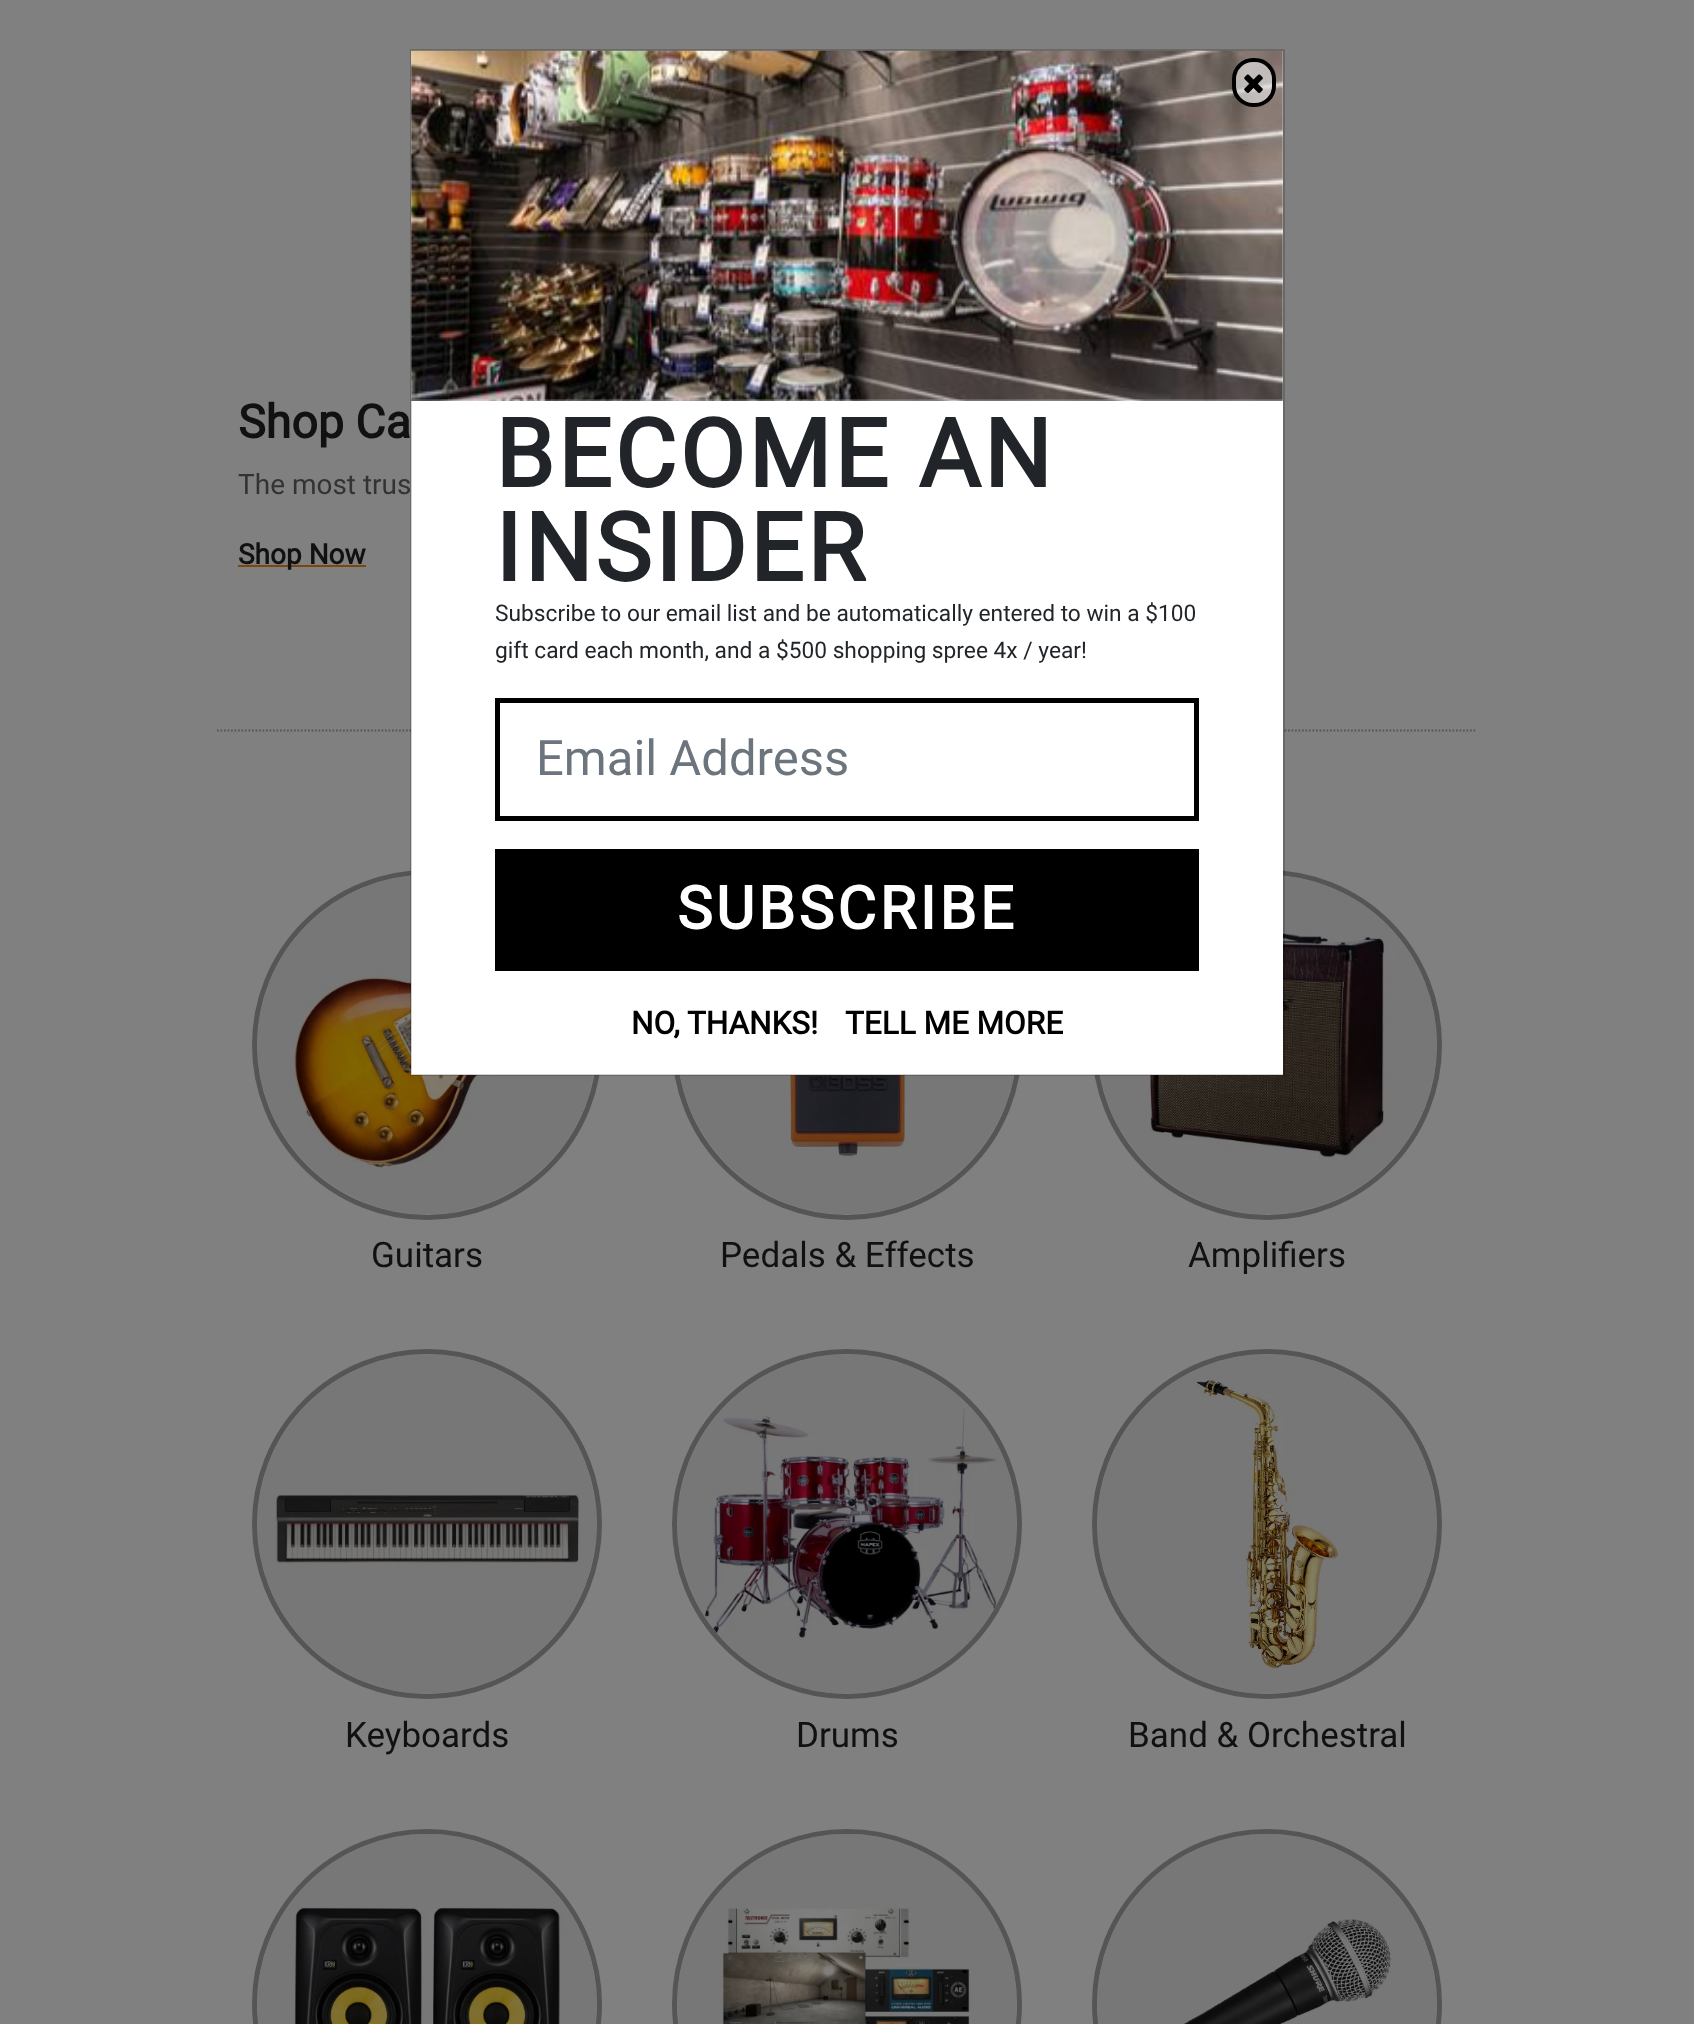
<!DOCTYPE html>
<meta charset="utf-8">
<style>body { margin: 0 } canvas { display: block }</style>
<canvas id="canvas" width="1694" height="2024"></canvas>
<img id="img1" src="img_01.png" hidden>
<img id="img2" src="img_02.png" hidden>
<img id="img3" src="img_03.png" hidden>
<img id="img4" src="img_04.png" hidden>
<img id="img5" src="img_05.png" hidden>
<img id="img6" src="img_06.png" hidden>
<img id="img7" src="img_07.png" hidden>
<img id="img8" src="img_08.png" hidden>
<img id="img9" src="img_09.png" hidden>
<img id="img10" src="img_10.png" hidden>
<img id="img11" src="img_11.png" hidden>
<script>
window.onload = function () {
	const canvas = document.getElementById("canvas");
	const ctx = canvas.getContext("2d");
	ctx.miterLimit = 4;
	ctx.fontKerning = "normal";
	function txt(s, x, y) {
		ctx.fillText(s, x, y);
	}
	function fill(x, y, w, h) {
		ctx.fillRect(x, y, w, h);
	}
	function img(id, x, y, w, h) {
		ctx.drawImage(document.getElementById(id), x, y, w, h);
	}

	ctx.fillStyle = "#808080";
	fill(0, 0, 1694, 2024);
	ctx.fillStyle = "#7B460F";
	fill(238, 565, 128, 2);
	ctx.beginPath();
	ctx.moveTo(217, 730.5);
	ctx.lineTo(427, 730.5);
	ctx.strokeStyle = "#555555";
	ctx.lineWidth = 1.8;
	ctx.setLineDash([1.75, 1.75]);
	ctx.stroke();
	ctx.beginPath();
	ctx.moveTo(1267, 730.5);
	ctx.lineTo(1477, 730.5);
	ctx.stroke();
	ctx.beginPath();
	ctx.arc(427, 1045, 172.5, 0, Math.PI * 2);
	ctx.lineWidth = 5;
	ctx.setLineDash([]);
	ctx.stroke();
	img("img1", 257, 875, 337, 339);
	ctx.beginPath();
	ctx.arc(847, 1045, 172.5, 0, Math.PI * 2);
	ctx.stroke();
	img("img2", 680, 1075, 334, 139);
	ctx.beginPath();
	ctx.arc(1267, 1045, 172.5, 0, Math.PI * 2);
	ctx.stroke();
	img("img3", 1100, 875, 337, 339);
	ctx.beginPath();
	ctx.arc(427, 1524, 172.5, 0, Math.PI * 2);
	ctx.stroke();
	img("img4", 257, 1354, 340, 340);
	ctx.beginPath();
	ctx.arc(847, 1524, 172.5, 0, Math.PI * 2);
	ctx.stroke();
	img("img5", 677, 1354, 340, 340);
	ctx.beginPath();
	ctx.arc(1267, 1524, 172.5, 0, Math.PI * 2);
	ctx.stroke();
	img("img6", 1097, 1354, 340, 340);
	ctx.beginPath();
	ctx.arc(427, 2004, 172.5, 0, Math.PI * 2);
	ctx.stroke();
	img("img7", 257, 1834, 340, 190);
	ctx.beginPath();
	ctx.arc(847, 2004, 172.5, 0, Math.PI * 2);
	ctx.stroke();
	img("img8", 677, 1834, 340, 190);
	ctx.beginPath();
	ctx.arc(1267, 2004, 172.5, 0, Math.PI * 2);
	ctx.stroke();
	img("img9", 1097, 1833, 340, 191);
	ctx.fillStyle = "#FFFFFF";
	fill(411, 51, 872, 1024);
	ctx.font = "bold 46.5px Roboto";
	ctx.fillStyle = "#111111";
	txt("Shop Ca", 238, 438);
	ctx.font = "28px Roboto";
	ctx.fillStyle = "#333333";
	txt("The most trus", 238, 494);
	ctx.font = "bold 28px Roboto";
	ctx.fillStyle = "#111111";
	txt("Shop Now", 238, 564);
	ctx.font = "35px Roboto";
	txt("Guitars", 371, 1267);
	txt("Pedals & Effects", 720, 1267);
	txt("Amplifiers", 1188, 1267);
	txt("Keyboards", 345, 1747);
	txt("Drums", 796, 1747);
	txt("Band & Orchestral", 1128, 1747);
	ctx.strokeStyle = "rgba(0, 0, 0, 0.18)";
	ctx.lineWidth = 2;
	ctx.strokeRect(411, 50, 873, 1025);
	img("img10", 411, 50, 872, 351);
	ctx.fillStyle = "rgba(221, 221, 221, 0.7)";
	ctx.beginPath();
	ctx.roundRect(1234, 60, 40, 45, 19);
	ctx.fill();
	ctx.strokeStyle = "#000000";
	ctx.lineWidth = 4;
	ctx.stroke();
	img("img11", 1244, 74, 19, 19);
	ctx.letterSpacing = "3.5px";
	ctx.font = "bold 94.5px 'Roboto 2'";
	ctx.fillStyle = "#212529";
	txt("BECOME AN", 495, 487);
	txt("INSIDER", 495, 581);
	ctx.letterSpacing = "0px";
	ctx.font = "22.75px Roboto";
	txt("Subscribe to our email list and be automatically entered to win a $100", 495, 621);
	txt("gift card each month, and a $500 shopping spree 4x / year!", 495, 658);
	ctx.lineWidth = 5;
	ctx.strokeRect(497.5, 700.5, 699, 118);
	ctx.font = "49px Roboto";
	ctx.fillStyle = "#6C757D";
	txt("Email Address", 536, 775);
	ctx.fillStyle = "#000000";
	fill(495, 849, 704, 122);
	ctx.letterSpacing = "3.5px";
	ctx.font = "bold 59.5px Roboto";
	ctx.fillStyle = "#FFFFFF";
	txt("SUBSCRIBE", 677, 929);
	ctx.letterSpacing = "0px";
	ctx.font = "bold 31.5px Roboto";
	ctx.fillStyle = "#000000";
	txt("NO, THANKS!", 631, 1034);
	txt("TELL ME MORE", 845, 1034);
};
</script>
